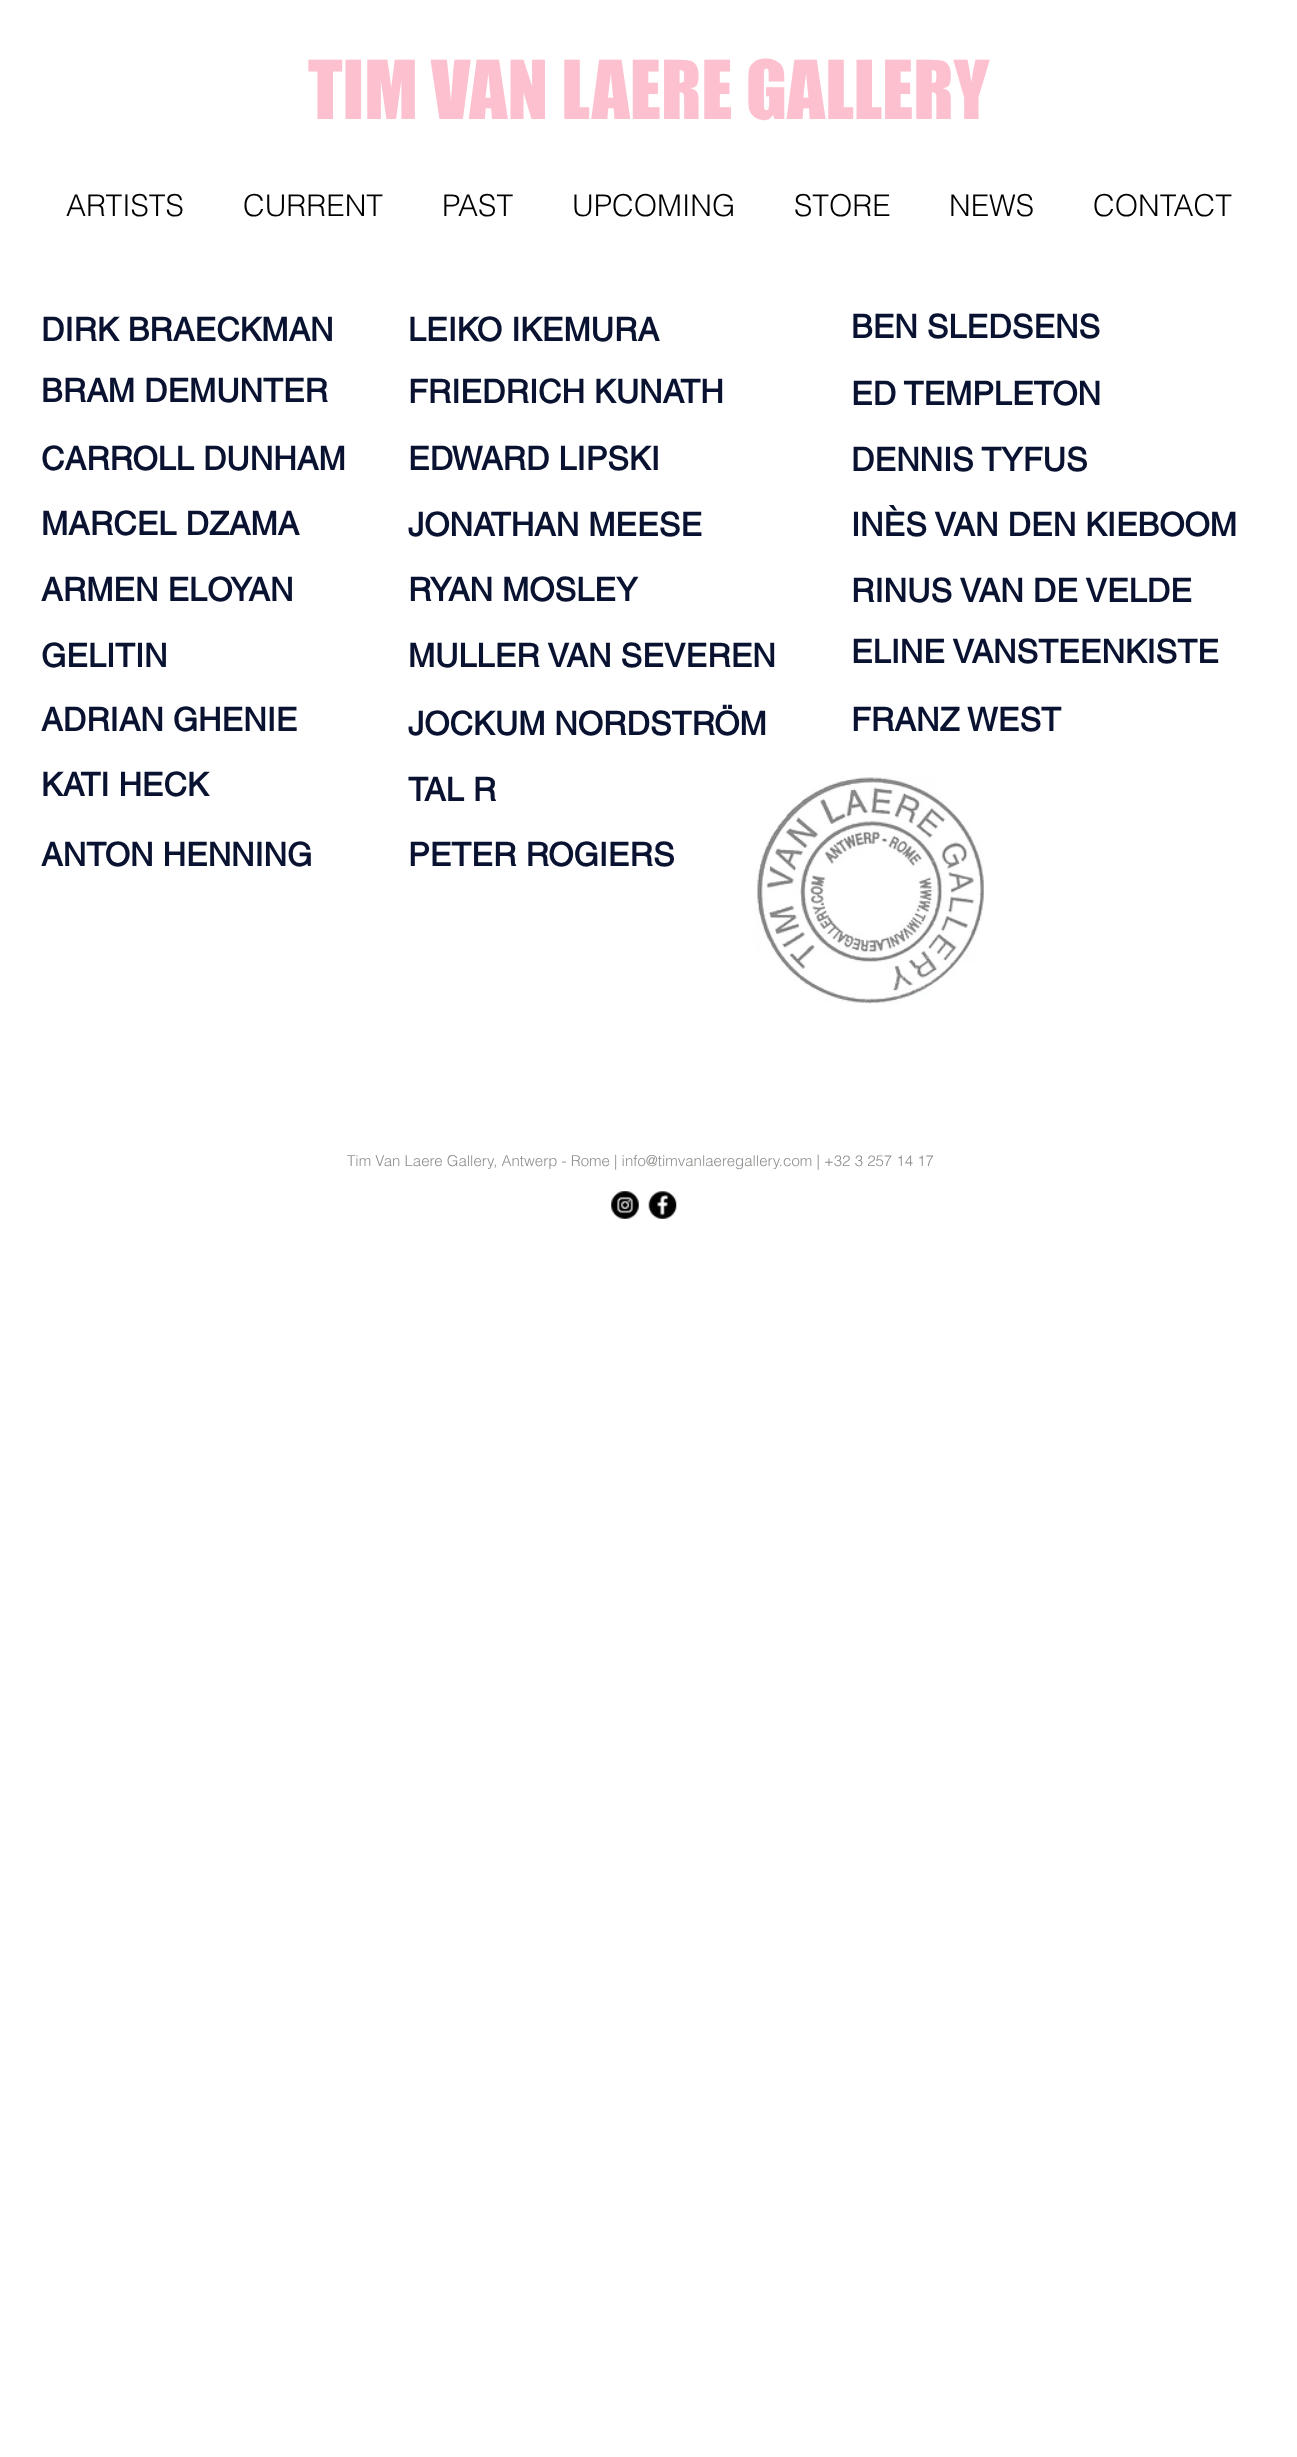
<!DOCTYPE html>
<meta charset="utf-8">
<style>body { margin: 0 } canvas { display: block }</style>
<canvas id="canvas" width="1297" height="2457"></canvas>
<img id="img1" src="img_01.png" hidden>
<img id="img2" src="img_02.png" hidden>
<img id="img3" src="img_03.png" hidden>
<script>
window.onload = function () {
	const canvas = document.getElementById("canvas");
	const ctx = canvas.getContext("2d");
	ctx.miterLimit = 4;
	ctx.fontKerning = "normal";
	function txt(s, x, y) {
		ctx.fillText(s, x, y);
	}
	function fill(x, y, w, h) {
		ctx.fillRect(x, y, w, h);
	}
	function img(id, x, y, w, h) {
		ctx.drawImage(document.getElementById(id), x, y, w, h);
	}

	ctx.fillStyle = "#FFFFFF";
	fill(0, 0, 1297, 2457);
	img("img1", 755, 777, 229, 227);
	img("img2", 611, 1191, 28, 28);
	img("img3", 648, 1191, 29, 28);
	ctx.font = "75px 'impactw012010'";
	ctx.fillStyle = "#FCC0CF";
	txt("TIM VAN LAERE GALLERY", 308, 119);
	ctx.font = "300 30px helvetica";
	ctx.fillStyle = "#000000";
	txt("ARTISTS", 66, 216);
	txt("CURRENT", 243, 216);
	txt("PAST", 442, 216);
	txt("UPCOMING", 572, 216);
	txt("STORE", 794, 216);
	txt("NEWS", 949, 216);
	txt("CONTACT", 1093, 216);
	ctx.font = "bold 32.5px helvetica";
	ctx.fillStyle = "#091230";
	txt("DIRK BRAECKMAN", 41, 341);
	txt("LEIKO IKEMURA", 408, 341);
	txt("BEN SLEDSENS", 851, 338);
	txt("BRAM DEMUNTER", 41, 402);
	txt("FRIEDRICH KUNATH", 408, 403);
	txt("ED TEMPLETON", 851, 405);
	txt("CARROLL DUNHAM", 41, 470);
	txt("EDWARD LIPSKI", 408, 470);
	txt("DENNIS TYFUS", 851, 471);
	txt("MARCEL DZAMA", 41, 535);
	txt("JONATHAN MEESE", 408, 536);
	txt("INÈS VAN DEN KIEBOOM", 851, 536);
	txt("ARMEN ELOYAN", 41, 601);
	txt("RYAN MOSLEY", 408, 601);
	txt("RINUS VAN DE VELDE", 851, 602);
	txt("GELITIN", 41, 667);
	txt("MULLER VAN SEVEREN", 408, 667);
	txt("ELINE VANSTEENKISTE", 851, 663);
	txt("ADRIAN GHENIE", 41, 731);
	txt("JOCKUM NORDSTRÖM", 408, 735);
	txt("FRANZ WEST", 851, 731);
	txt("KATI HECK", 41, 796);
	txt("TAL R", 408, 801);
	txt("ANTON HENNING", 41, 866);
	txt("PETER ROGIERS", 408, 866);
	ctx.font = "300 15px helvetica";
	ctx.fillStyle = "#8E8E8B";
	txt("Tim Van Laere Gallery, Antwerp - Rome | info@timvanlaeregallery.com | +32 3 257 14 17", 347, 1166);
};
</script>
